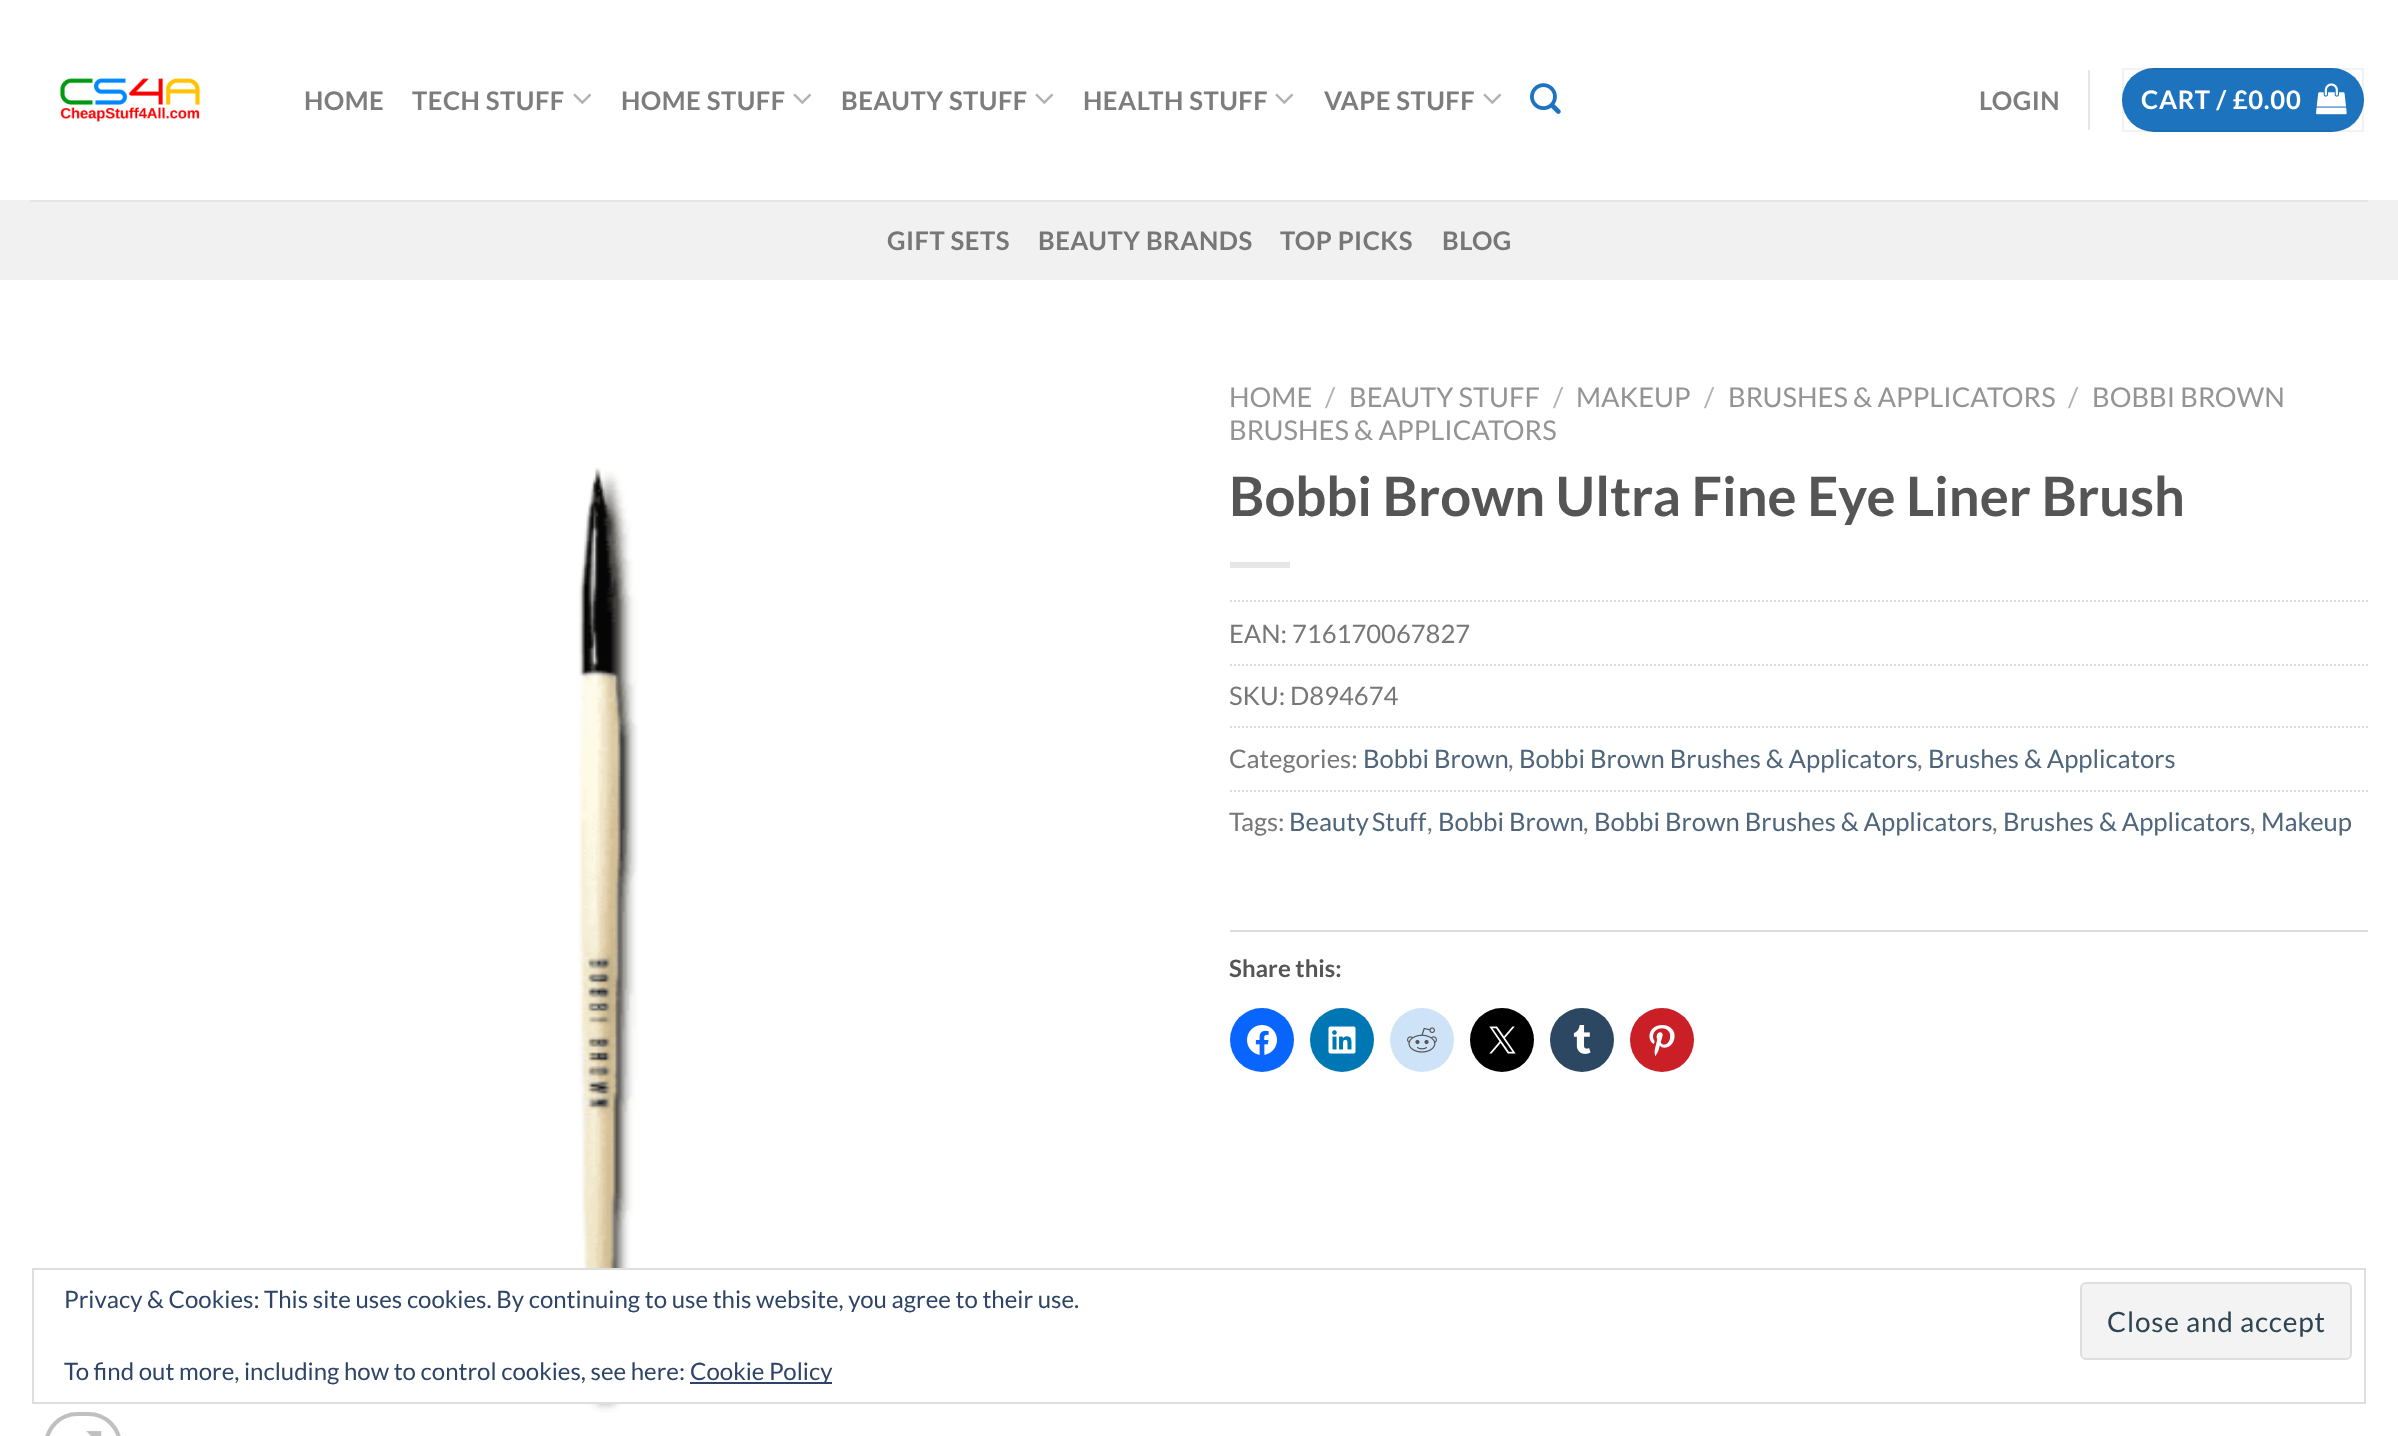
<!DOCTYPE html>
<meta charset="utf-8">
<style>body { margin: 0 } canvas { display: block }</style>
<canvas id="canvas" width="2398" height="1436"></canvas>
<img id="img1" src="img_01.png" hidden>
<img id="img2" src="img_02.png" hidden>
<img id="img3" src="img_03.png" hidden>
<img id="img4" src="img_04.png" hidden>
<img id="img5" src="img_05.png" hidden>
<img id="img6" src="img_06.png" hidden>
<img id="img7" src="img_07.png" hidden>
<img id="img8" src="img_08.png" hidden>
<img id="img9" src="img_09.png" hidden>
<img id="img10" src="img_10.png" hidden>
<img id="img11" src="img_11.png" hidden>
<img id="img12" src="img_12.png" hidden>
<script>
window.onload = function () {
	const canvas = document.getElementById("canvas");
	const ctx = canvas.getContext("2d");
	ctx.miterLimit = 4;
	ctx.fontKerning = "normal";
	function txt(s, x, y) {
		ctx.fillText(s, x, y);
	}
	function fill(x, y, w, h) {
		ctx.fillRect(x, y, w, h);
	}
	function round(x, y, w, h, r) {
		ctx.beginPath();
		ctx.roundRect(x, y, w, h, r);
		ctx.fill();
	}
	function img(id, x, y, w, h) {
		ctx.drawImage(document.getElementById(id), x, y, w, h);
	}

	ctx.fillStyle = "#FFFFFF";
	fill(0, 0, 2398, 1436);
	img("img1", 60, 78, 140, 44);
	img("img2", 573, 93, 19, 11);
	img("img2", 793, 93, 19, 11);
	img("img2", 1035, 93, 19, 11);
	img("img2", 1275, 93, 19, 11);
	img("img2", 1483, 93, 19, 11);
	img("img3", 1530, 83, 31, 31);
	ctx.fillStyle = "#E6E6E6";
	fill(2088, 70, 2, 60);
	ctx.fillStyle = "#1E73BE";
	round(2122, 68, 242, 64, 32);
	ctx.strokeStyle = "rgba(0, 0, 0, 0.05)";
	ctx.lineWidth = 2;
	ctx.strokeRect(2123, 69, 240, 62);
	img("img4", 2316, 83, 31, 32);
	ctx.fillStyle = "#F1F1F1";
	fill(0, 200, 2398, 80);
	ctx.fillStyle = "#E5E5E5";
	fill(30, 200, 2338, 2);
	img("img5", 578, 467, 60, 946);
	ctx.beginPath();
	ctx.roundRect(46, 1414, 74, 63, 37);
	ctx.strokeStyle = "#C0C0C0";
	ctx.lineWidth = 4;
	ctx.stroke();
	img("img6", 86, 1431, 16, 5);
	ctx.fillStyle = "#E6E6E6";
	fill(1230, 562, 60, 6);
	ctx.beginPath();
	ctx.moveTo(1230, 601);
	ctx.lineTo(2368, 601);
	ctx.strokeStyle = "#DDDDDD";
	ctx.lineWidth = 2;
	ctx.setLineDash([2, 2]);
	ctx.stroke();
	ctx.beginPath();
	ctx.moveTo(1230, 665);
	ctx.lineTo(2368, 665);
	ctx.stroke();
	ctx.beginPath();
	ctx.moveTo(1230, 727);
	ctx.lineTo(2368, 727);
	ctx.stroke();
	ctx.beginPath();
	ctx.moveTo(1230, 791);
	ctx.lineTo(2368, 791);
	ctx.stroke();
	ctx.fillStyle = "#DCDCDE";
	fill(1230, 930, 1138, 2);
	ctx.fillStyle = "#0866FF";
	ctx.beginPath();
	ctx.arc(1262, 1040, 32, 0, Math.PI * 2);
	ctx.fill();
	img("img7", 1247, 1025, 30, 30);
	ctx.fillStyle = "#0077B5";
	ctx.beginPath();
	ctx.arc(1342, 1040, 32, 0, Math.PI * 2);
	ctx.fill();
	img("img8", 1328, 1026, 28, 28);
	ctx.fillStyle = "#CEE3F8";
	ctx.beginPath();
	ctx.arc(1422, 1040, 32, 0, Math.PI * 2);
	ctx.fill();
	img("img9", 1407, 1027, 30, 26);
	ctx.fillStyle = "#000000";
	ctx.beginPath();
	ctx.arc(1502, 1040, 32, 0, Math.PI * 2);
	ctx.fill();
	img("img10", 1489, 1026, 27, 28);
	ctx.fillStyle = "#2C4762";
	ctx.beginPath();
	ctx.arc(1582, 1040, 32, 0, Math.PI * 2);
	ctx.fill();
	img("img11", 1573, 1025, 18, 29);
	ctx.fillStyle = "#CA1F27";
	ctx.beginPath();
	ctx.arc(1662, 1040, 32, 0, Math.PI * 2);
	ctx.fill();
	img("img12", 1649, 1025, 26, 32);
	ctx.fillStyle = "#FFFFFF";
	fill(583, 1270, 48, 132);
	ctx.strokeStyle = "#DEDEDE";
	ctx.setLineDash([]);
	ctx.strokeRect(33, 1269, 2332, 134);
	ctx.fillStyle = "#F3F3F3";
	ctx.beginPath();
	ctx.roundRect(2081, 1283, 270, 76, 5);
	ctx.fill();
	ctx.stroke();
	ctx.fillStyle = "#2E4467";
	fill(690, 1382, 142, 2);
	ctx.letterSpacing = "0.5px";
	ctx.font = "bold 25.6px Lato";
	ctx.fillStyle = "#7D7D7D";
	txt("HOME", 304, 110);
	txt("TECH STUFF", 412, 110);
	txt("HOME STUFF", 621, 110);
	txt("BEAUTY STUFF", 841, 110);
	txt("HEALTH STUFF", 1083, 110);
	txt("VAPE STUFF", 1324, 110);
	txt("LOGIN", 1979, 110);
	ctx.letterSpacing = "0.75px";
	ctx.fillStyle = "#FFFFFF";
	txt("CART / £0.00", 2141, 109);
	ctx.letterSpacing = "0.5px";
	ctx.fillStyle = "#777777";
	txt("GIFT SETS", 887, 250);
	txt("BEAUTY BRANDS", 1038, 250);
	txt("TOP PICKS", 1280, 250);
	txt("BLOG", 1442, 250);
	ctx.letterSpacing = "0px";
	ctx.font = "27.25px Lato";
	ctx.fillStyle = "#949494";
	txt("HOME", 1229, 407);
	ctx.fillStyle = "#B2B2B2";
	txt("/", 1325, 407);
	ctx.fillStyle = "#949494";
	txt("BEAUTY STUFF", 1349, 407);
	ctx.fillStyle = "#B2B2B2";
	txt("/", 1553, 407);
	ctx.fillStyle = "#949494";
	txt("MAKEUP", 1576, 407);
	ctx.fillStyle = "#B2B2B2";
	txt("/", 1704, 407);
	ctx.fillStyle = "#949494";
	txt("BRUSHES & APPLICATORS", 1728, 407);
	ctx.fillStyle = "#B2B2B2";
	txt("/", 2068, 407);
	ctx.fillStyle = "#949494";
	txt("BOBBI BROWN", 2092, 407);
	txt("BRUSHES & APPLICATORS", 1229, 440);
	ctx.font = "bold 54.4px Lato";
	ctx.fillStyle = "#555555";
	txt("Bobbi Brown Ultra Fine Eye Liner Brush", 1229, 516);
	ctx.font = "25.6px Lato";
	ctx.fillStyle = "#777777";
	txt("EAN: 716170067827", 1229, 643);
	txt("SKU: D894674", 1229, 705);
	txt("Categories:", 1229, 768);
	ctx.fillStyle = "#4E657B";
	txt("Bobbi Brown", 1363, 768);
	ctx.fillStyle = "#777777";
	txt(",", 1508, 768);
	ctx.fillStyle = "#4E657B";
	txt("Bobbi Brown Brushes & Applicators", 1519, 768);
	ctx.fillStyle = "#777777";
	txt(",", 1917, 768);
	ctx.fillStyle = "#4E657B";
	txt("Brushes & Applicators", 1928, 768);
	ctx.fillStyle = "#777777";
	txt("Tags:", 1229, 831);
	ctx.wordSpacing = "-2px";
	ctx.fillStyle = "#4E657B";
	txt("Beauty Stuff", 1289, 831);
	ctx.wordSpacing = "0px";
	ctx.fillStyle = "#777777";
	txt(",", 1427, 831);
	ctx.fillStyle = "#4E657B";
	txt("Bobbi Brown", 1438, 831);
	ctx.fillStyle = "#777777";
	txt(",", 1583, 831);
	ctx.fillStyle = "#4E657B";
	txt("Bobbi Brown Brushes & Applicators", 1594, 831);
	ctx.fillStyle = "#777777";
	txt(",", 1992, 831);
	ctx.fillStyle = "#4E657B";
	txt("Brushes & Applicators", 2003, 831);
	ctx.fillStyle = "#777777";
	txt(",", 2250, 831);
	ctx.fillStyle = "#4E657B";
	txt("Makeup", 2261, 831);
	ctx.font = "bold 24px Lato";
	ctx.fillStyle = "#555555";
	txt("Share this:", 1229, 977);
	ctx.font = "24px Lato";
	ctx.fillStyle = "#2E4467";
	txt("Privacy & Cookies: This site uses cookies. By continuing to use this website, you agree to their use.", 64, 1308);
	ctx.letterSpacing = "0.8px";
	ctx.font = "28px Lato";
	ctx.fillStyle = "#2E4453";
	txt("Close and accept", 2107, 1332);
	ctx.letterSpacing = "0px";
	ctx.font = "24px Lato";
	ctx.fillStyle = "#2E4467";
	txt("To find out more, including how to control cookies, see here:", 64, 1380);
	txt("Cookie Policy", 690, 1380);
};
</script>
